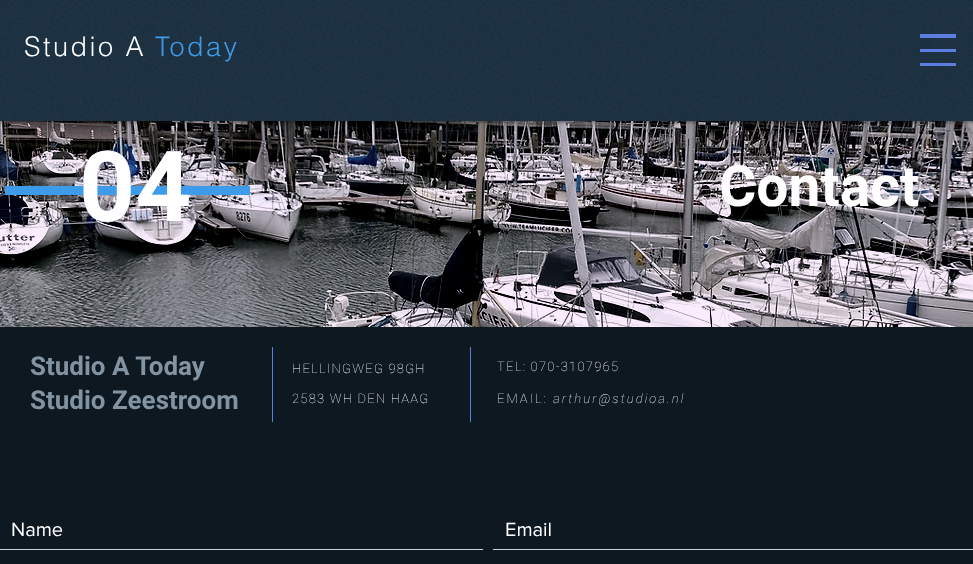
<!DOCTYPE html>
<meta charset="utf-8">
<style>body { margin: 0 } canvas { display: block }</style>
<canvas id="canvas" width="973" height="564"></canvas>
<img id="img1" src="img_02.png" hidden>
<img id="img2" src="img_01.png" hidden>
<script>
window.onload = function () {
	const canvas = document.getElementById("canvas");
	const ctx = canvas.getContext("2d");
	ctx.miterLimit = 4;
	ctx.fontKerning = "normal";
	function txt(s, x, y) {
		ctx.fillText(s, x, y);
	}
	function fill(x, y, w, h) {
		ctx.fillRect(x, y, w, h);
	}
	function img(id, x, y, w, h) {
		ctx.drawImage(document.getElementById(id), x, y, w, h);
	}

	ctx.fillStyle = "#0E1821";
	fill(0, 0, 973, 564);
	img("img1", 0, 121, 973, 206);
	ctx.fillStyle = "rgba(0, 0, 0, 0.7)";
	ctx.filter = "blur(2.5px)";
	ctx.beginPath();
	ctx.rect(0, 0, 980, 121);
	ctx.fill();
	ctx.filter = "none";
	ctx.fillStyle = "#1C3142";
	fill(0, 0, 973, 121);
	img("img2", 0, 0, 973, 121);
	ctx.fillStyle = "#5B7EE0";
	fill(920, 34, 36, 4);
	fill(920, 49, 36, 3);
	fill(920, 63, 36, 3);
	fill(272, 347, 1, 75);
	fill(470, 347, 1, 75);
	ctx.fillStyle = "#C5D0D9";
	fill(0, 549, 483, 1);
	fill(493, 549, 480, 1);
	ctx.letterSpacing = "2.5px";
	ctx.font = "300 27px helvetica";
	ctx.fillStyle = "#FFFFFF";
	txt("Studio A", 24, 56);
	ctx.fillStyle = "#3D9BE9";
	txt("Today", 155, 56);
	ctx.letterSpacing = "0px";
	ctx.font = "bold 98px Roboto";
	ctx.fillStyle = "#5B7EE0";
	txt("04", 79, 221);
	ctx.font = "bold 57px Roboto";
	ctx.fillStyle = "#FFFFFF";
	txt("Contact", 719, 206);
	ctx.fillStyle = "#3D9BE9";
	fill(5, 186, 245, 9);
	ctx.font = "bold 98px Roboto";
	ctx.fillStyle = "#FFFFFF";
	txt("04", 79, 221);
	ctx.font = "bold 26px Roboto";
	ctx.fillStyle = "#8293A1";
	txt("Studio A Today", 30, 375);
	txt("Studio Zeestroom", 30, 409);
	ctx.letterSpacing = "1.25px";
	ctx.font = "100 13px Roboto";
	ctx.fillStyle = "#FFFFFF";
	txt("HELLINGWEG 98GH", 292, 373);
	txt("2583 WH DEN HAAG", 292, 403);
	txt("TEL: 070-3107965", 497, 371);
	ctx.letterSpacing = "2px";
	txt("EMAIL:", 497, 403);
	ctx.font = "italic 100 13px Roboto";
	txt("arthur@studioa.nl", 553, 403);
	ctx.letterSpacing = "0px";
	ctx.font = "20px 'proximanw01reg'";
	txt("Name", 11, 536);
	txt("Email", 505, 536);
};
</script>
